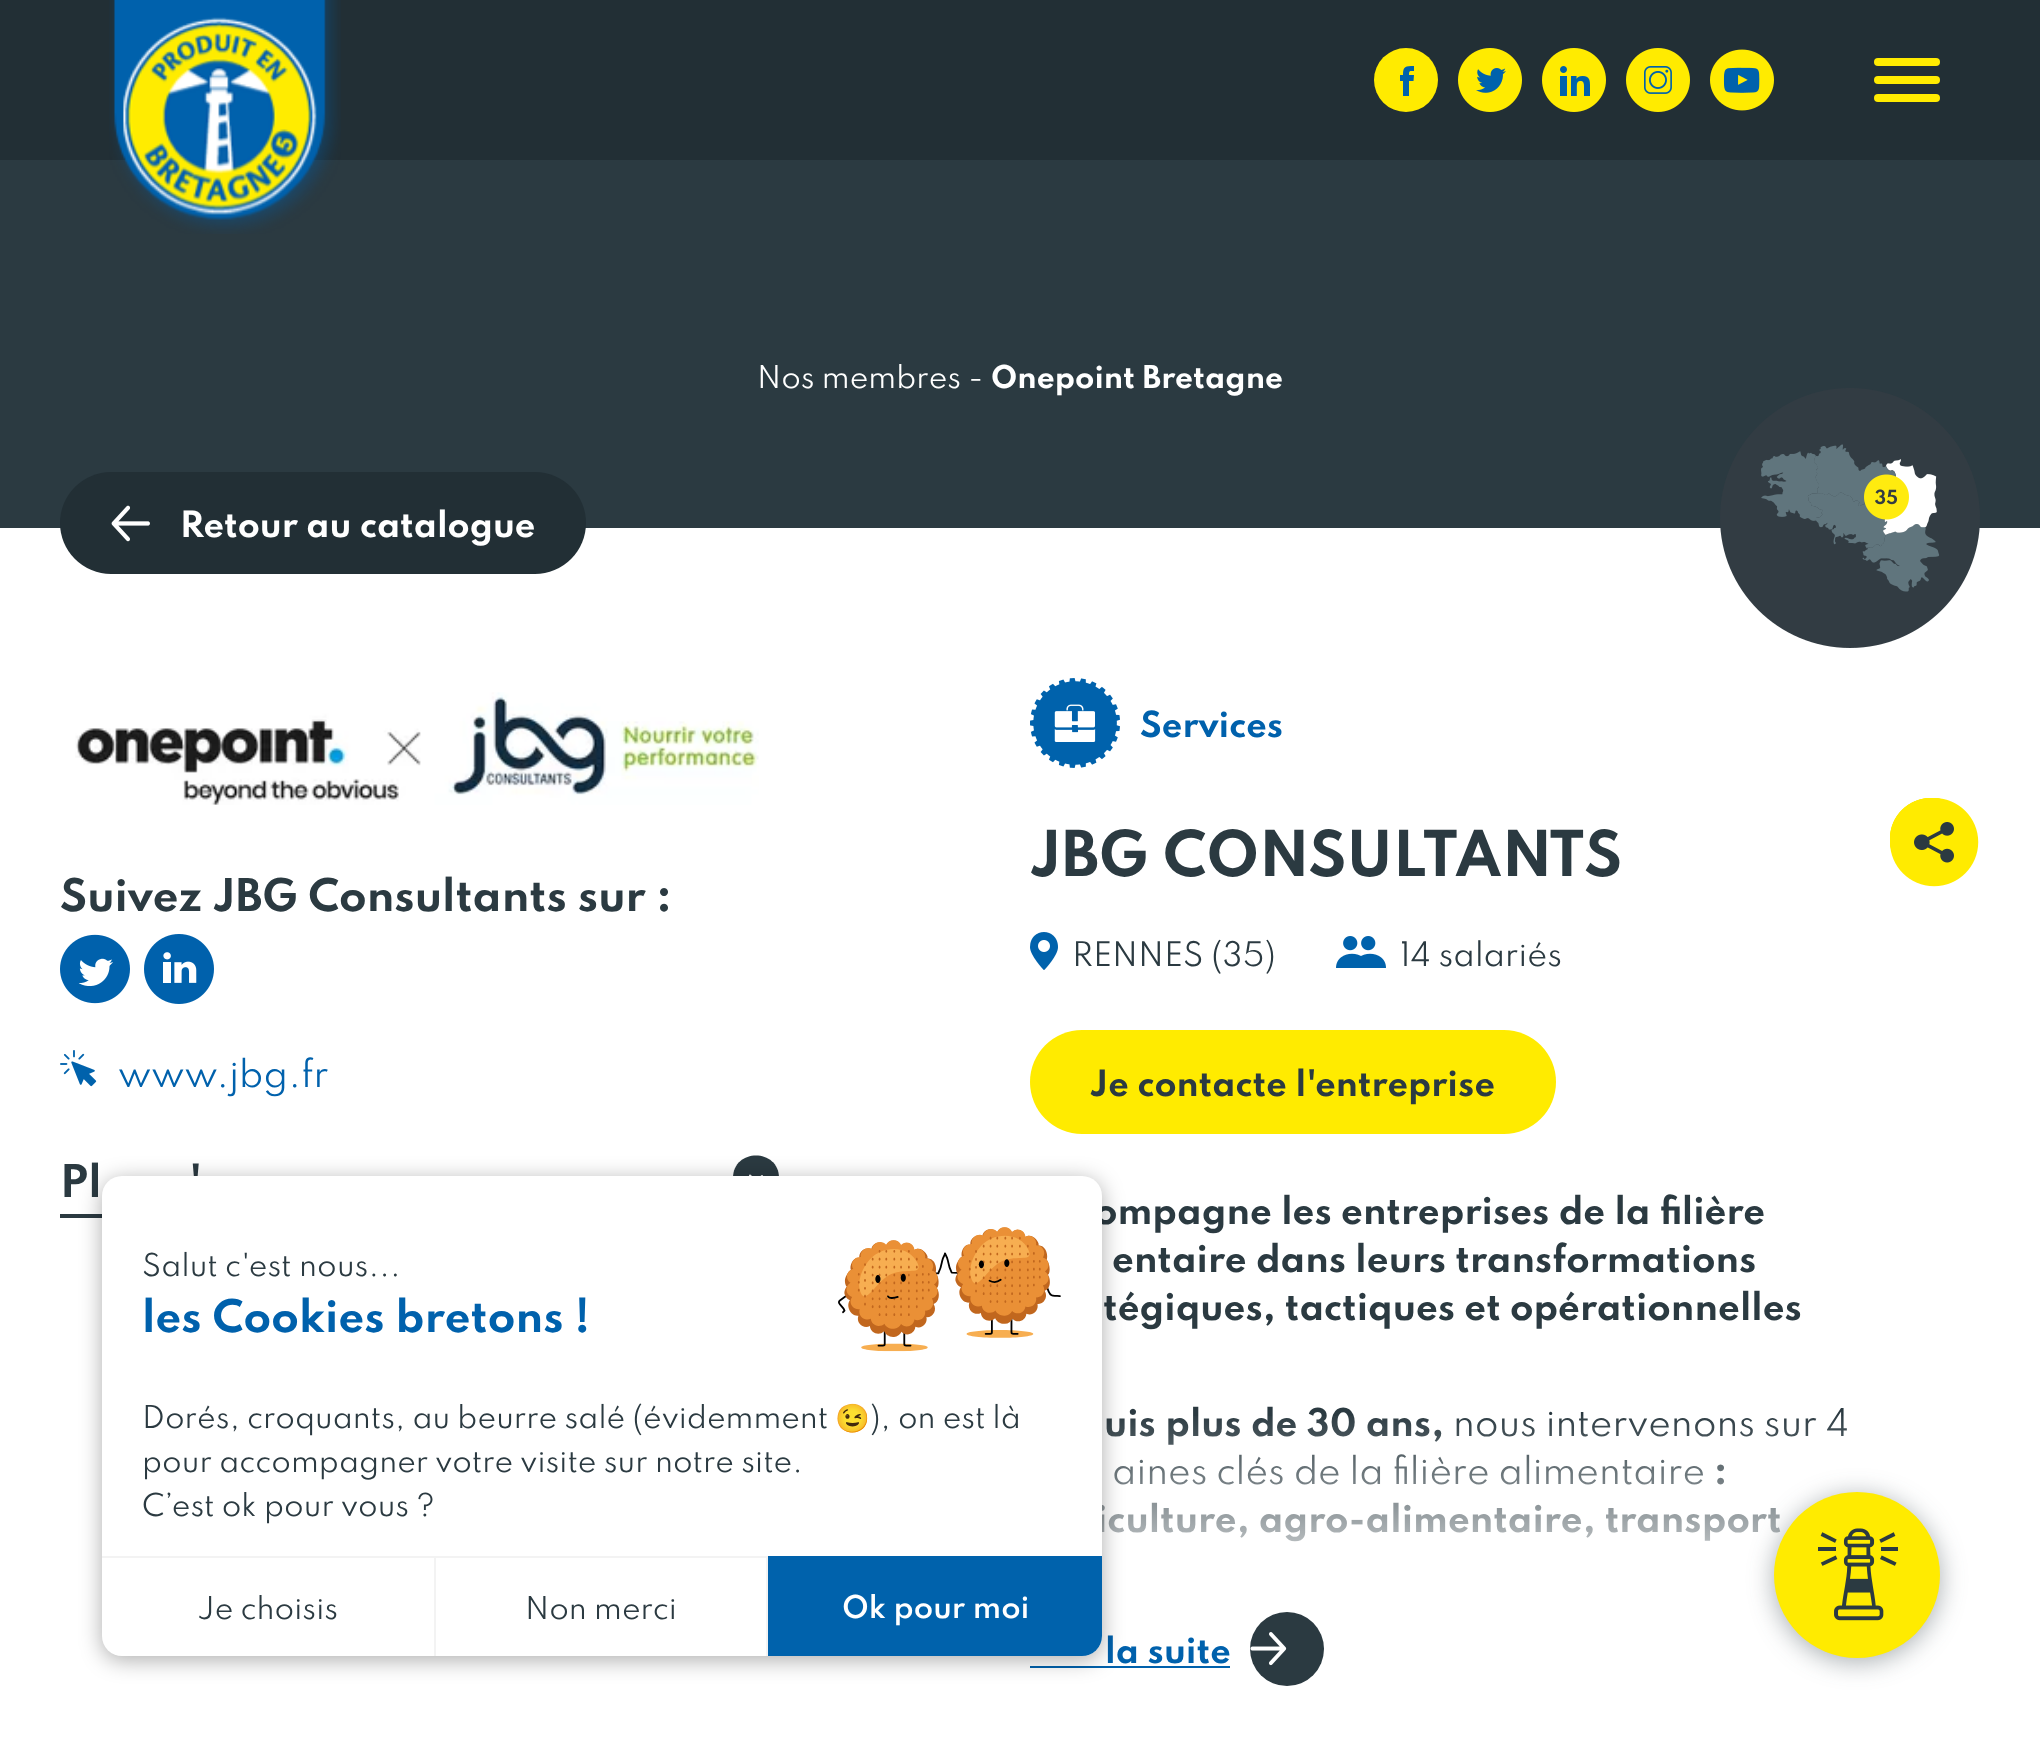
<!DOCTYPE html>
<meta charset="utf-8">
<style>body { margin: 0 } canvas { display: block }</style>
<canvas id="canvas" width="2040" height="1758"></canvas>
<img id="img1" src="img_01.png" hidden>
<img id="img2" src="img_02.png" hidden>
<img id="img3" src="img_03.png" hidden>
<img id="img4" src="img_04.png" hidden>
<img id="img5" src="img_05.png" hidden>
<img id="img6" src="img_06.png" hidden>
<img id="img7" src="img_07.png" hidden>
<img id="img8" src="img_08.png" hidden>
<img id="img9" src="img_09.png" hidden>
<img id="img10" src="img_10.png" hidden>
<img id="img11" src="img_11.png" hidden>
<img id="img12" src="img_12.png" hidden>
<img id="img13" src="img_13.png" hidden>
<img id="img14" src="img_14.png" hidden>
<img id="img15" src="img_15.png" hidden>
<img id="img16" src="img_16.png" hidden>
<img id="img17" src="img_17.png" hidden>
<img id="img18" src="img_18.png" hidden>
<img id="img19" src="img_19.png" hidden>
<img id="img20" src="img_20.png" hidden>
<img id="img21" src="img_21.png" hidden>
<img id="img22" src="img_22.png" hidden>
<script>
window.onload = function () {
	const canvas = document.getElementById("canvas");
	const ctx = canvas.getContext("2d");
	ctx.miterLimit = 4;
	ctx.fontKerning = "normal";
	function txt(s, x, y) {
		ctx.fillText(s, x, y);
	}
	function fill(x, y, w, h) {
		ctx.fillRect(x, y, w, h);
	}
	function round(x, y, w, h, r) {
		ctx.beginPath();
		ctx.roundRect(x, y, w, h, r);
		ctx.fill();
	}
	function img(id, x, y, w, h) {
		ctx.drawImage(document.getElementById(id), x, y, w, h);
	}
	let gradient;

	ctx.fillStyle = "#FFFFFF";
	fill(0, 0, 2040, 1758);
	ctx.fillStyle = "#222F35";
	fill(0, 0, 2040, 160);
	ctx.fillStyle = "#2B3A41";
	fill(0, 160, 2040, 368);
	img("img1", 109, 0, 232, 234);
	ctx.fillStyle = "#FFEB00";
	ctx.beginPath();
	ctx.arc(1406, 80, 32, 0, Math.PI * 2);
	ctx.fill();
	ctx.fillStyle = "#0062AC";
	ctx.beginPath();
	ctx.moveTo(1409, 75);
	ctx.bezierCurveTo(1409, 70.5, 1409.5, 71, 1414, 71);
	ctx.lineTo(1414, 66);
	ctx.bezierCurveTo(1405.5, 66, 1403, 66, 1403, 75);
	ctx.lineTo(1400, 75);
	ctx.lineTo(1400, 81);
	ctx.lineTo(1403, 81);
	ctx.lineTo(1403, 96);
	ctx.lineTo(1409, 96);
	ctx.lineTo(1409, 81);
	ctx.lineTo(1413.5, 81);
	ctx.lineTo(1414, 75);
	ctx.closePath();
	ctx.fill("evenodd");
	img("img2", 1458, 48, 64, 64);
	img("img3", 1542, 48, 64, 64);
	img("img4", 1626, 48, 64, 64);
	img("img5", 1710, 49, 64, 62);
	ctx.fillStyle = "#FFEB00";
	round(1874, 58, 66, 8, 4);
	round(1874, 76, 66, 8, 4);
	round(1874, 94, 66, 8, 4);
	ctx.fillStyle = "#222F35";
	round(60, 472, 526, 102, 51);
	img("img6", 111, 505, 39, 37);
	img("img7", 1720, 388, 260, 260);
	img("img8", 1030, 678, 90, 90);
	img("img9", 1030, 932, 28, 38);
	img("img10", 1336, 936, 50, 32);
	ctx.fillStyle = "#FFEB00";
	round(1030, 1030, 526, 104, 52);
	ctx.fillStyle = "#0061AC";
	fill(1030, 1666, 200, 2);
	ctx.fillStyle = "#2B3A41";
	ctx.beginPath();
	ctx.arc(1287, 1649, 37, 0, Math.PI * 2);
	ctx.fill();
	img("img11", 1250, 1632, 37, 34);
	img("img12", 1890, 798, 54, 54);
	img("img13", 1890, 798, 54, 49);
	img("img14", 1890, 798, 54, 54);
	img("img15", 1890, 798, 58, 58);
	img("img16", 1890, 798, 89, 89);
	img("img17", 75, 692, 684, 113);
	img("img18", 60, 934, 70, 70);
	img("img19", 144, 934, 70, 70);
	img("img20", 60, 1050, 37, 37);
	fill(60, 1214, 42, 4);
	ctx.beginPath();
	ctx.moveTo(733, 1178);
	ctx.bezierCurveTo(733, 1208, 779, 1208, 779, 1178);
	ctx.bezierCurveTo(779, 1148, 733, 1148, 733, 1178);
	ctx.closePath();
	ctx.fill("evenodd");
	ctx.beginPath();
	ctx.moveTo(762, 1176);
	ctx.lineTo(756, 1181.5);
	ctx.lineTo(750, 1175.5);
	ctx.strokeStyle = "#FFFFFF";
	ctx.lineWidth = 2;
	ctx.lineCap = "round";
	ctx.lineJoin = "round";
	ctx.stroke();
	ctx.font = "28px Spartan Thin";
	ctx.fillStyle = "#FFFFFF";
	txt("Nos membres -", 757, 388);
	ctx.font = "bold 28px Spartan Thin";
	txt("Onepoint Bretagne", 991, 388);
	ctx.font = "bold 32px Spartan Thin";
	txt("Retour au catalogue", 180, 537);
	ctx.fillStyle = "#0061AC";
	txt("Services", 1140, 737);
	ctx.font = "bold 56px Spartan Thin";
	ctx.fillStyle = "#2B3A41";
	txt("JBG CONSULTANTS", 1030, 876);
	ctx.font = "30px Spartan Thin";
	txt("RENNES (35)", 1072, 966);
	txt("14 salariés", 1400, 966);
	ctx.font = "bold 32px Spartan Thin";
	txt("Je contacte l'entreprise", 1090, 1096);
	ctx.font = "bold 34px Spartan Thin";
	txt("ompagne les entreprises de la filière", 1094, 1224);
	txt("entaire dans leurs transformations", 1112, 1272);
	txt("tégiques, tactiques et opérationnelles", 1103, 1320);
	txt("uis plus de 30 ans,", 1104, 1436);
	ctx.font = "34px Spartan Thin";
	txt("nous intervenons sur 4", 1453, 1436);
	txt("aines clés de la filière alimentaire", 1112, 1484);
	ctx.font = "bold 34px Spartan Thin";
	txt(":", 1714, 1484);
	txt("iculture, agro-alimentaire, transport", 1096, 1532);
	gradient = ctx.createLinearGradient(1460, 1412, 1460, 1612);
	gradient.addColorStop(0, "rgba(255, 255, 255, 0)");
	gradient.addColorStop(1, "#FFFFFF");
	ctx.fillStyle = gradient;
	fill(1102, 1416, 745, 126);
	ctx.font = "bold 32px Spartan Thin";
	ctx.fillStyle = "#0061AC";
	txt("la suite", 1105, 1663);
	ctx.font = "bold 40px Spartan Thin";
	ctx.fillStyle = "#2B3A41";
	txt("Suivez JBG Consultants sur :", 60, 911);
	ctx.font = "34px Spartan Thin";
	ctx.fillStyle = "#0061AC";
	txt("www.jbg.fr", 118, 1087);
	ctx.font = "bold 40px Spartan Thin";
	ctx.fillStyle = "#2B3A41";
	txt("Pl", 60, 1197);
	txt("'", 189, 1197);
	ctx.fillStyle = "rgba(0, 0, 0, 0.32)";
	ctx.filter = "blur(11px)";
	ctx.beginPath();
	ctx.roundRect(102, 1180, 1000, 480, 20);
	ctx.fill();
	ctx.filter = "none";
	ctx.fillStyle = "#FFFFFF";
	round(102, 1176, 1000, 480, 20);
	ctx.letterSpacing = "0.1px";
	ctx.font = "28px Spartan Thin";
	ctx.fillStyle = "#2B3A41";
	txt("Salut c'est nous...", 142, 1276);
	ctx.font = "bold 40px Spartan Thin";
	ctx.fillStyle = "#0061AC";
	txt("les Cookies bretons !", 142, 1332);
	img("img21", 838, 1227, 223, 125);
	ctx.letterSpacing = "0px";
	ctx.font = "28px Spartan Thin";
	ctx.fillStyle = "#2B3A41";
	txt("Dorés, croquants, au beurre salé (évidemment", 142, 1428);
	ctx.font = "28px Noto Color Emoji";
	txt("😉", 835, 1428);
	ctx.font = "28px Spartan Thin";
	txt("), on est là", 870, 1428);
	txt("pour accompagner votre visite sur notre site.", 142, 1472);
	txt("C’est ok pour vous ?", 142, 1516);
	ctx.fillStyle = "#F3F3F3";
	fill(102, 1556, 666, 2);
	fill(434, 1556, 2, 100);
	ctx.fillStyle = "#2B3A41";
	txt("Je choisis", 197, 1619);
	ctx.fillStyle = "#F3F3F3";
	fill(766, 1556, 2, 100);
	ctx.fillStyle = "#2B3A41";
	txt("Non merci", 525, 1619);
	ctx.fillStyle = "#0062AC";
	ctx.beginPath();
	ctx.roundRect(768, 1556, 334, 100, [0, 0, 20, 0]);
	ctx.fill();
	ctx.font = "600 28px Spartan Thin";
	ctx.fillStyle = "#FFFFFF";
	txt("Ok pour moi", 842, 1618);
	ctx.fillStyle = "rgba(43, 58, 65, 0.41)";
	ctx.filter = "blur(13px)";
	ctx.beginPath();
	ctx.roundRect(1774, 1496, 166, 166, 83);
	ctx.fill();
	ctx.filter = "none";
	ctx.fillStyle = "#FFEB00";
	ctx.beginPath();
	ctx.arc(1857, 1575, 83, 0, Math.PI * 2);
	ctx.fill();
	img("img22", 1818, 1528, 80, 93);
};
</script>
